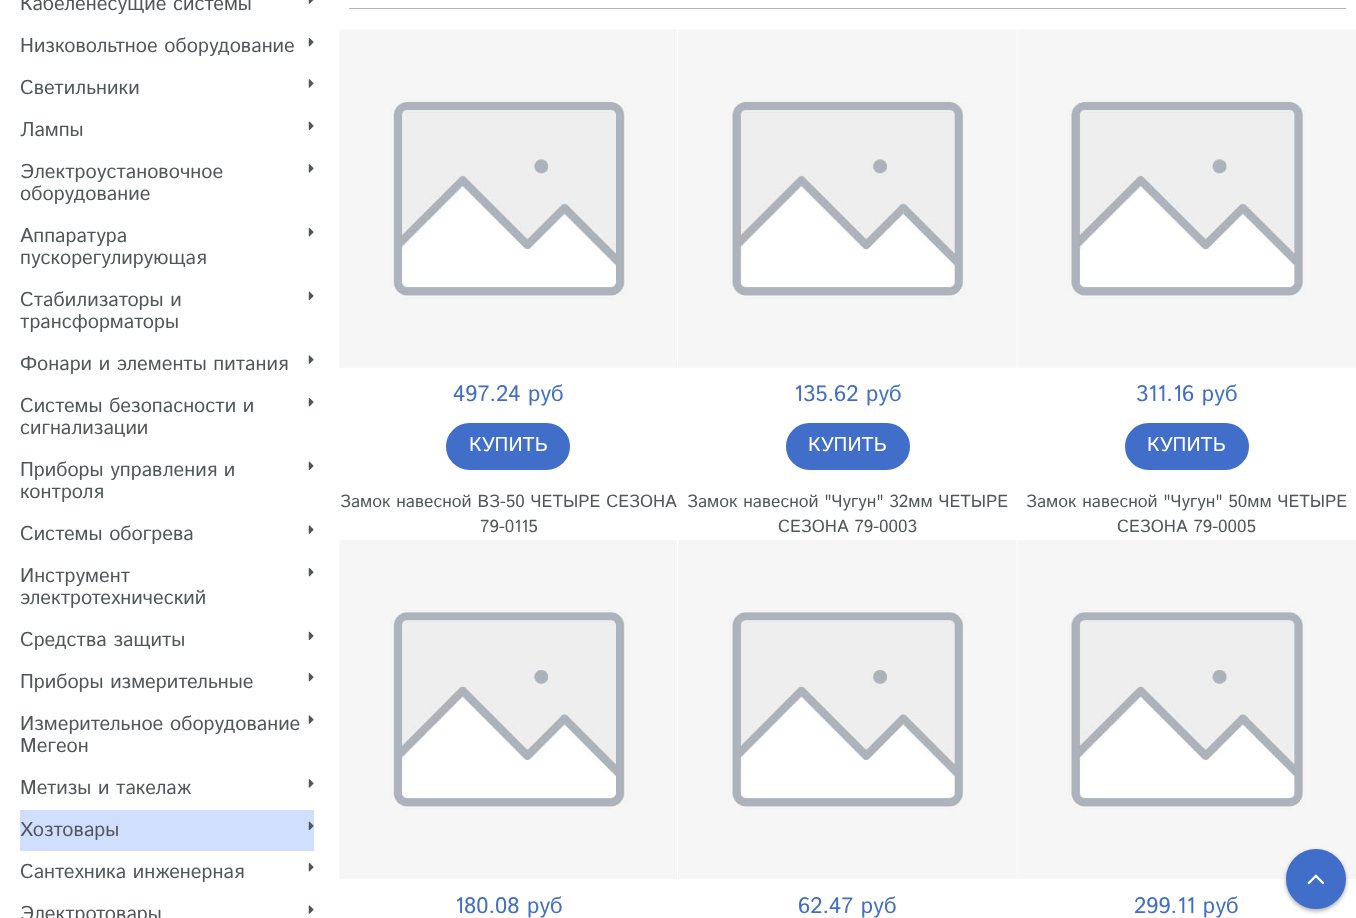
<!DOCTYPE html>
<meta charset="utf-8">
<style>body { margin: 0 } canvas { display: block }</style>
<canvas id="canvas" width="1356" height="918"></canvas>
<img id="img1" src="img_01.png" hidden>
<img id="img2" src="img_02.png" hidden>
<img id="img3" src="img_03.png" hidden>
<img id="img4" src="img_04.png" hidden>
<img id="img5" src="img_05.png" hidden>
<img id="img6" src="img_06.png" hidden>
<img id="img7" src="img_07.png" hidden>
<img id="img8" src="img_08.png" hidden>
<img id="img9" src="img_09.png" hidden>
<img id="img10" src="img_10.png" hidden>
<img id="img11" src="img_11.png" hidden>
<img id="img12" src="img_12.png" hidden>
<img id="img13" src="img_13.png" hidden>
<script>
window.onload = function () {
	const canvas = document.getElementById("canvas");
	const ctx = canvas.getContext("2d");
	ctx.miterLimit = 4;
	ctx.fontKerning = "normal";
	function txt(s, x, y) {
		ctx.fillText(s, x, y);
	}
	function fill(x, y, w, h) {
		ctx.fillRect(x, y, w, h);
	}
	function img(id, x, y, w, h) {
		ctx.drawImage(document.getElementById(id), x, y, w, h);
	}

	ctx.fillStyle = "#FFFFFF";
	fill(0, 0, 1356, 918);
	img("img1", 308, 0, 6, 4);
	img("img2", 308, 37, 6, 10);
	img("img3", 308, 79, 6, 9);
	img("img4", 308, 121, 6, 10);
	img("img3", 308, 164, 6, 9);
	img("img2", 308, 227, 6, 10);
	img("img4", 308, 291, 6, 10);
	img("img5", 308, 355, 6, 9);
	img("img2", 308, 397, 6, 10);
	img("img4", 308, 461, 6, 10);
	img("img5", 308, 525, 6, 9);
	img("img2", 308, 567, 6, 10);
	img("img4", 308, 631, 6, 10);
	img("img2", 308, 672, 6, 10);
	img("img5", 308, 715, 6, 9);
	img("img3", 308, 779, 6, 9);
	ctx.fillStyle = "#D1DFFF";
	fill(20, 810, 294, 41);
	img("img6", 308, 821, 6, 10);
	img("img2", 308, 862, 6, 10);
	img("img5", 308, 905, 6, 9);
	ctx.fillStyle = "#B5B5B5";
	fill(349, 8, 997, 1);
	img("img7", 339, 29, 338, 339);
	ctx.fillStyle = "#406EC9";
	ctx.beginPath();
	ctx.roundRect(447.5, 424.5, 121, 44, 22);
	ctx.fill();
	ctx.strokeStyle = "#406EC9";
	ctx.lineWidth = 3;
	ctx.stroke();
	img("img8", 678, 29, 339, 339);
	ctx.beginPath();
	ctx.roundRect(787.5, 424.5, 121, 44, 22);
	ctx.fill();
	ctx.stroke();
	img("img9", 1017, 29, 339, 339);
	ctx.beginPath();
	ctx.roundRect(1126.5, 424.5, 121, 44, 22);
	ctx.fill();
	ctx.stroke();
	img("img10", 339, 540, 338, 339);
	img("img11", 678, 540, 339, 339);
	img("img12", 1017, 540, 339, 339);
	ctx.fillStyle = "rgba(51, 51, 51, 0.42)";
	ctx.filter = "blur(2px)";
	ctx.beginPath();
	ctx.roundRect(1286, 851, 60, 60, 30);
	ctx.fill();
	ctx.filter = "none";
	ctx.fillStyle = "#406EC9";
	ctx.beginPath();
	ctx.arc(1316, 879, 28.5, 0, Math.PI * 2);
	ctx.fill();
	ctx.stroke();
	img("img13", 1307, 874, 18, 11);
	ctx.font = "20px Istok Web";
	ctx.fillStyle = "#515759";
	txt("Кабеленесущие системы", 20, 10);
	txt("Низковольтное оборудование", 20, 52);
	txt("Светильники", 20, 94);
	txt("Лампы", 20, 136);
	txt("Электроустановочное", 20, 178);
	txt("оборудование", 20, 200);
	txt("Аппаратура", 20, 242);
	txt("пускорегулирующая", 20, 264);
	txt("Стабилизаторы и", 20, 306);
	txt("трансформаторы", 20, 328);
	txt("Фонари и элементы питания", 20, 370);
	txt("Системы безопасности и", 20, 412);
	txt("сигнализации", 20, 434);
	txt("Приборы управления и", 20, 476);
	txt("контроля", 20, 498);
	txt("Системы обогрева", 20, 540);
	txt("Инструмент", 20, 582);
	txt("электротехнический", 20, 604);
	txt("Cредства защиты", 20, 646);
	txt("Приборы измерительные", 20, 688);
	txt("Измерительное оборудование", 20, 730);
	txt("Мегеон", 20, 752);
	txt("Метизы и такелаж", 20, 794);
	txt("Хозтовары", 20, 836);
	txt("Сантехника инженерная", 20, 878);
	txt("Электротовары", 20, 920);
	ctx.font = "22.5px Istok Web";
	ctx.fillStyle = "#406EC9";
	txt("497.24 руб", 453, 401);
	ctx.font = "20px Istok Web";
	ctx.fillStyle = "#FFFFFF";
	txt("КУПИТЬ", 469, 451);
	ctx.font = "17.5px Istok Web";
	ctx.fillStyle = "#515759";
	txt("Замок навесной ВЗ-50 ЧЕТЫРЕ СЕЗОНА", 340, 507);
	txt("79-0115", 480, 532);
	ctx.font = "22.5px Istok Web";
	ctx.fillStyle = "#406EC9";
	txt("135.62 руб", 794, 401);
	ctx.font = "20px Istok Web";
	ctx.fillStyle = "#FFFFFF";
	txt("КУПИТЬ", 808, 451);
	ctx.font = "17.5px Istok Web";
	ctx.fillStyle = "#515759";
	txt("Замок навесной \"Чугун\" 32мм ЧЕТЫРЕ", 687, 507);
	txt("СЕЗОНА 79-0003", 778, 532);
	ctx.font = "22.5px Istok Web";
	ctx.fillStyle = "#406EC9";
	txt("311.16 руб", 1136, 401);
	ctx.font = "20px Istok Web";
	ctx.fillStyle = "#FFFFFF";
	txt("КУПИТЬ", 1147, 451);
	ctx.font = "17.5px Istok Web";
	ctx.fillStyle = "#515759";
	txt("Замок навесной \"Чугун\" 50мм ЧЕТЫРЕ", 1026, 507);
	txt("СЕЗОНА 79-0005", 1117, 532);
	ctx.font = "22.5px Istok Web";
	ctx.fillStyle = "#406EC9";
	txt("180.08 руб", 455, 913);
	txt("62.47 руб", 798, 913);
	txt("299.11 руб", 1134, 913);
};
</script>
